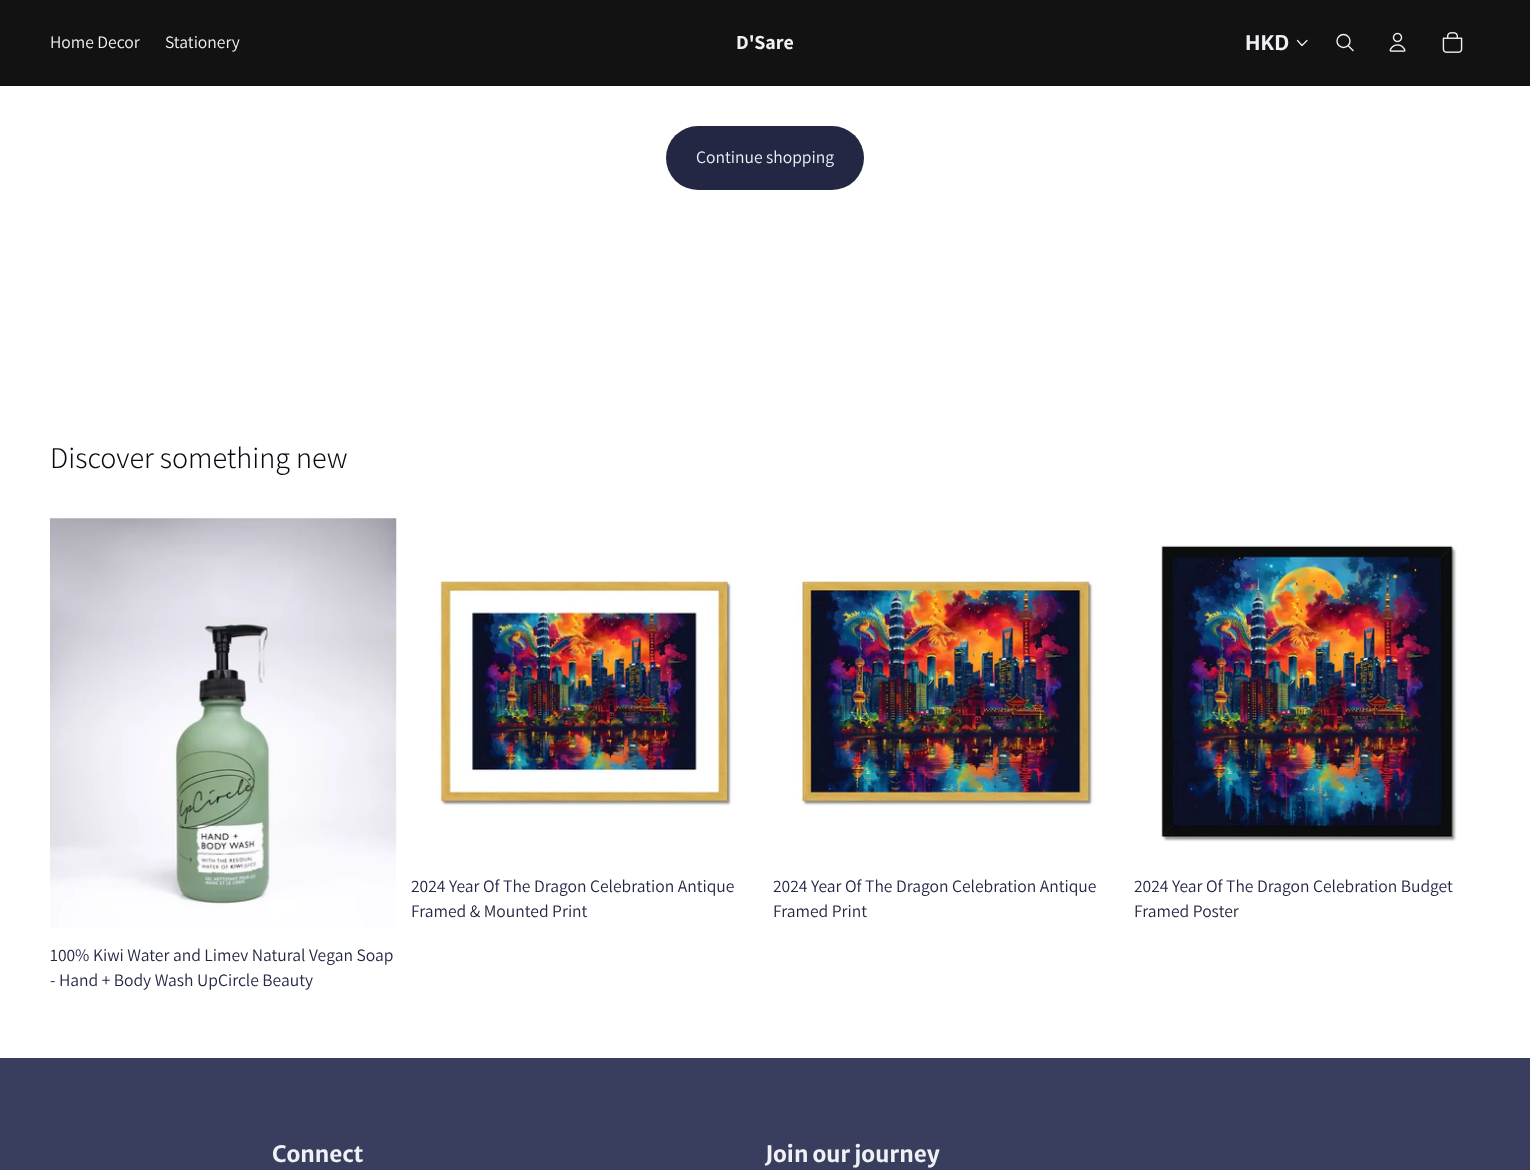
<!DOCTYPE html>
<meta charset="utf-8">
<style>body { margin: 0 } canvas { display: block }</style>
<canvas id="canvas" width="1530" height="1170"></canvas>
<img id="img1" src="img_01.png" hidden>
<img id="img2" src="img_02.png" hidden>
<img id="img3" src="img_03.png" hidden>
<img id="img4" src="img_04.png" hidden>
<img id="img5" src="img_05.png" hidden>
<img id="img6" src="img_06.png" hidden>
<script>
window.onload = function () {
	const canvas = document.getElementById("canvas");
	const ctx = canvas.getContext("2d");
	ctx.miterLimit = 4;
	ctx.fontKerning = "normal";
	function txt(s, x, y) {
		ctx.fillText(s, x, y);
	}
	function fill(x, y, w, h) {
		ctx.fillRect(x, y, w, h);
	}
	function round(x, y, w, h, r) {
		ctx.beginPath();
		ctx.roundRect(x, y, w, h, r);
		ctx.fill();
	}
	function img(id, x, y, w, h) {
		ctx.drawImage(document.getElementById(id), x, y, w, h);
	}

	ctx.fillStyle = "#FFFFFF";
	fill(0, 0, 1530, 1170);
	ctx.fillStyle = "#121212";
	fill(0, 0, 1530, 86);
	ctx.beginPath();
	ctx.moveTo(1307, 40.5);
	ctx.lineTo(1302, 45.5);
	ctx.lineTo(1297.5, 40.5);
	ctx.strokeStyle = "#F0F1F4";
	ctx.lineWidth = 1.2;
	ctx.lineCap = "round";
	ctx.lineJoin = "round";
	ctx.stroke();
	ctx.beginPath();
	ctx.arc(1343.5, 41, 6.5, 0, Math.PI * 2);
	ctx.lineWidth = 1.4;
	ctx.stroke();
	ctx.beginPath();
	ctx.moveTo(1348.5, 46);
	ctx.lineTo(1353, 50.5);
	ctx.stroke();
	img("img1", 1389, 32, 17, 20);
	img("img2", 1442, 32, 21, 21);
	ctx.fillStyle = "#232743";
	round(666, 126, 198, 64, 32);
	img("img3", 439, 580, 295, 226);
	img("img4", 796, 580, 299, 226);
	img("img5", 1161, 545, 296, 297);
	img("img6", 50, 518, 347, 410);
	ctx.fillStyle = "#3A3E5E";
	fill(0, 1058, 1530, 112);
	ctx.font = "17.5px Assistant";
	ctx.fillStyle = "#F0F1F4";
	txt("Home Decor", 50, 48);
	txt("Stationery", 165, 48);
	ctx.font = "bold 20px Assistant";
	txt("D'Sare", 736, 49);
	ctx.font = "bold 20px Merriweather Sans";
	txt("HKD", 1245, 50);
	ctx.font = "17.5px Assistant";
	txt("Continue shopping", 696, 163);
	ctx.font = "300 30px Assistant";
	ctx.fillStyle = "#090A11";
	txt("Discover something new", 50, 468);
	ctx.font = "17.5px Assistant";
	ctx.fillStyle = "#232743";
	txt("2024 Year Of The Dragon Celebration Antique", 411, 892);
	txt("Framed & Mounted Print", 411, 917);
	txt("2024 Year Of The Dragon Celebration Antique", 773, 892);
	txt("Framed Print", 773, 917);
	txt("2024 Year Of The Dragon Celebration Budget", 1134, 892);
	txt("Framed Poster", 1134, 917);
	txt("100% Kiwi Water and Limev Natural Vegan Soap", 50, 961);
	txt("- Hand + Body Wash UpCircle Beauty", 50, 986);
	ctx.font = "bold 22.5px Merriweather Sans";
	ctx.fillStyle = "#F0F1F4";
	txt("Connect", 272, 1162);
	txt("Join our journey", 765, 1162);
};
</script>
